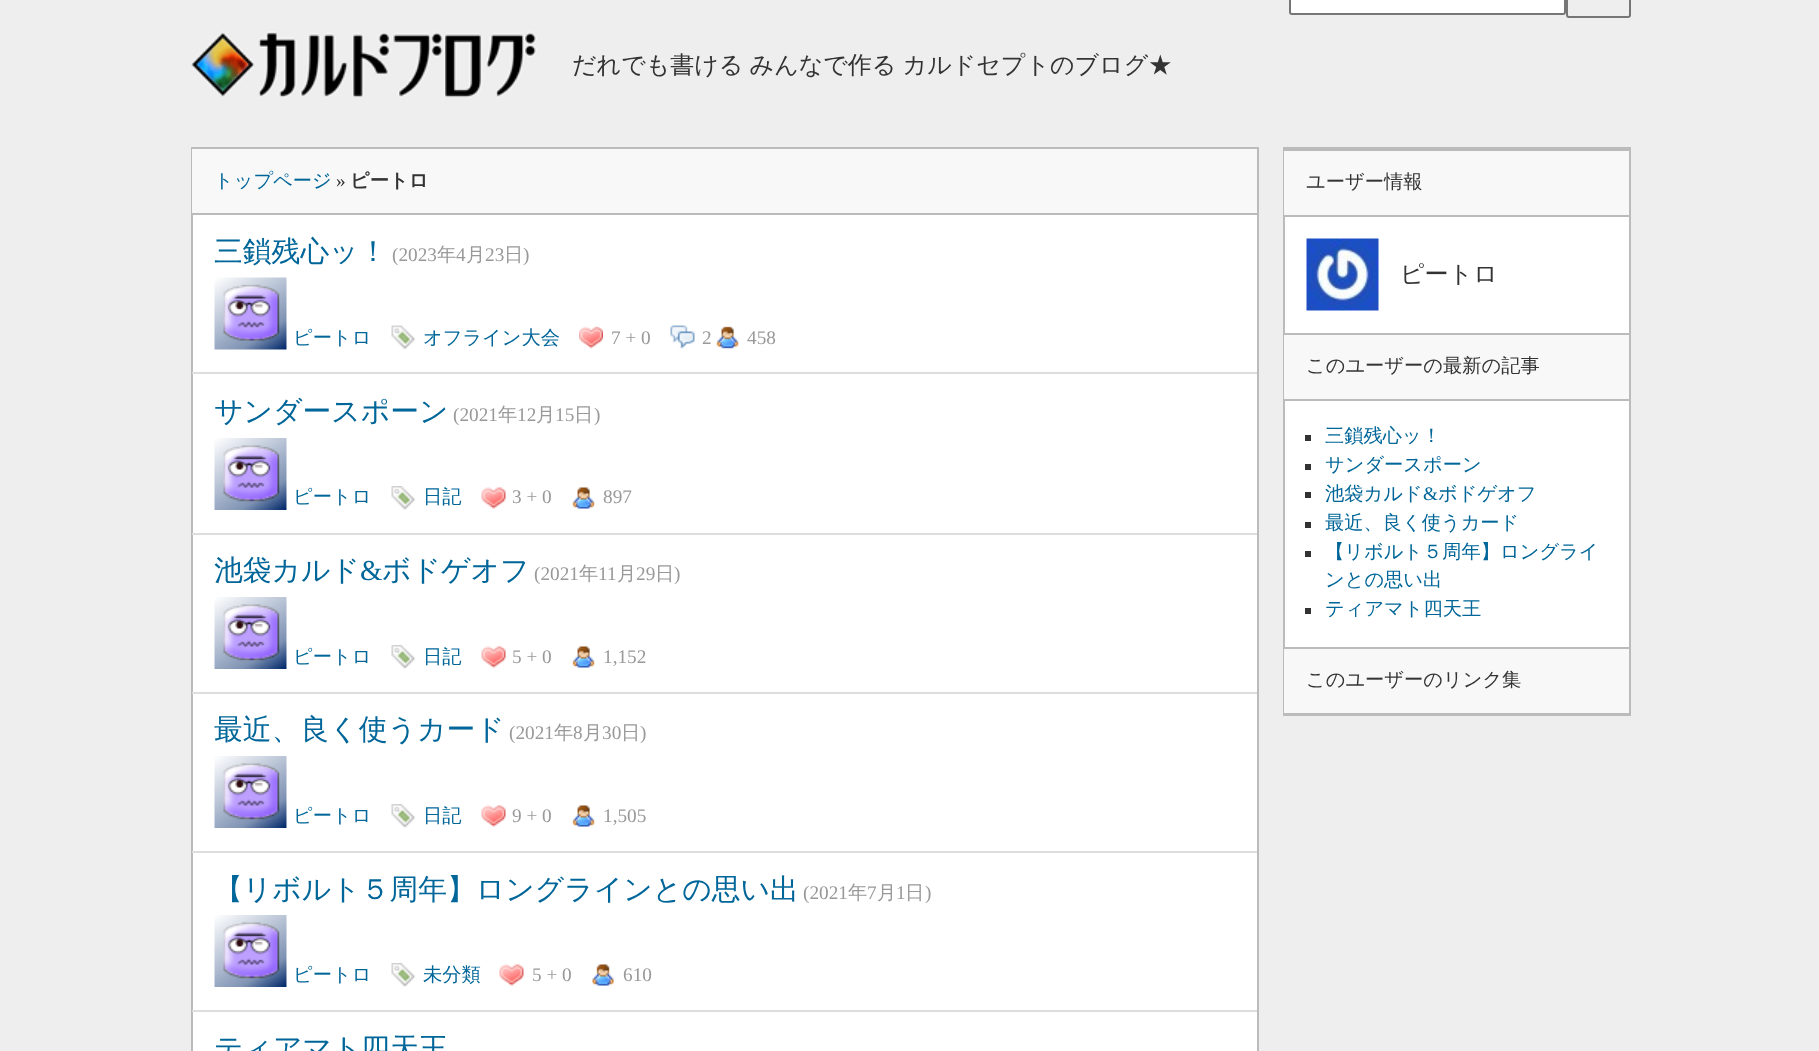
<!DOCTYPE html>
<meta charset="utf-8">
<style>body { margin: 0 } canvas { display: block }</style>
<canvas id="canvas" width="1819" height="1051"></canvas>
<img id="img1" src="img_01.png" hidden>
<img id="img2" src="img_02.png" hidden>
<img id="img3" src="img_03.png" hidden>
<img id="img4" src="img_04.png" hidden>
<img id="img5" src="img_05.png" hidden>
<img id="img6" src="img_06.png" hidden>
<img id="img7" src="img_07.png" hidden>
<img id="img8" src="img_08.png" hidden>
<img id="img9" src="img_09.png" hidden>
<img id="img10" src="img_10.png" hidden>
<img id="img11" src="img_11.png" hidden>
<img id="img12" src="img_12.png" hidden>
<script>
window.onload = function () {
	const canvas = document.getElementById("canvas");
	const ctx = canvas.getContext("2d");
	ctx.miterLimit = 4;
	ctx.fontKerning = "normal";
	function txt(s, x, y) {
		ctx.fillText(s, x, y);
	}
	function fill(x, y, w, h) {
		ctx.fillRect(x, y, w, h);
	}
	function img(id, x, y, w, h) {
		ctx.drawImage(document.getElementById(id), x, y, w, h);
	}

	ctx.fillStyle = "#EEEEEE";
	fill(0, 0, 1819, 1051);
	ctx.fillStyle = "#FFFFFF";
	ctx.beginPath();
	ctx.roundRect(1290, -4, 275, 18, 2);
	ctx.fill();
	ctx.strokeStyle = "#767676";
	ctx.lineWidth = 2;
	ctx.stroke();
	ctx.beginPath();
	ctx.roundRect(1567, -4, 63, 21, 2);
	ctx.stroke();
	img("img1", 191, 31, 346, 67);
	fill(193, 215, 1064, 836);
	ctx.strokeStyle = "#BBBBBB";
	ctx.strokeRect(192, 148, 1066, 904);
	ctx.fillStyle = "#F8F8F8";
	fill(192, 149, 1065, 64);
	ctx.fillStyle = "#BBBBBB";
	fill(192, 213, 1065, 2);
	ctx.fillStyle = "#DDDDDD";
	fill(192, 372, 1065, 2);
	img("img2", 214, 277, 73, 73);
	img("img3", 391, 325, 25, 25);
	img("img4", 579, 326, 24, 23);
	img("img5", 670, 325, 25, 24);
	img("img6", 716, 326, 23, 23);
	fill(192, 533, 1065, 2);
	img("img7", 214, 438, 73, 72);
	img("img8", 391, 486, 25, 24);
	img("img9", 481, 487, 25, 22);
	img("img10", 572, 487, 23, 22);
	fill(192, 692, 1065, 2);
	img("img7", 214, 597, 73, 72);
	img("img8", 391, 645, 25, 24);
	img("img9", 481, 646, 25, 22);
	img("img10", 572, 646, 23, 22);
	fill(192, 851, 1065, 2);
	img("img7", 214, 756, 73, 72);
	img("img8", 391, 804, 25, 24);
	img("img9", 481, 805, 25, 22);
	img("img10", 572, 805, 23, 22);
	fill(192, 1010, 1065, 2);
	img("img7", 214, 915, 73, 72);
	img("img8", 391, 963, 25, 24);
	img("img9", 499, 964, 25, 22);
	img("img11", 592, 964, 22, 22);
	ctx.fillStyle = "#FFFFFF";
	fill(1285, 217, 344, 430);
	ctx.strokeRect(1284, 148, 346, 567);
	ctx.fillStyle = "#F8F8F8";
	fill(1284, 151, 345, 64);
	ctx.fillStyle = "#BBBBBB";
	fill(1284, 149, 345, 2);
	fill(1284, 215, 345, 2);
	img("img12", 1306, 238, 73, 73);
	ctx.fillStyle = "#F8F8F8";
	fill(1284, 335, 345, 64);
	ctx.fillStyle = "#BBBBBB";
	fill(1284, 333, 345, 2);
	fill(1284, 399, 345, 2);
	ctx.fillStyle = "#333333";
	fill(1305, 435, 6, 6);
	fill(1305, 464, 6, 6);
	fill(1305, 492, 6, 6);
	fill(1305, 522, 6, 6);
	fill(1305, 551, 6, 6);
	fill(1305, 608, 6, 6);
	ctx.fillStyle = "#F8F8F8";
	fill(1284, 649, 345, 64);
	ctx.fillStyle = "#BBBBBB";
	fill(1284, 647, 345, 2);
	fill(1284, 713, 345, 1);
	ctx.wordSpacing = "-1px";
	ctx.font = "500 24px WenQuanYi Zen Hei";
	ctx.fillStyle = "#333333";
	txt("だれでも書ける みんなで作る カルドセプトのブログ★", 572, 73);
	ctx.wordSpacing = "0px";
	ctx.font = "500 19.25px WenQuanYi Zen Hei";
	ctx.fillStyle = "#006699";
	txt("トップページ", 214, 187);
	ctx.font = "19.25px Liberation Serif";
	ctx.fillStyle = "#333333";
	txt("»", 336, 187);
	ctx.font = "bold 19.25px WenQuanYi Zen Hei";
	txt("ピートロ", 350, 187);
	ctx.font = "500 28.8px WenQuanYi Zen Hei";
	ctx.fillStyle = "#006699";
	txt("三鎖残心ッ！", 214, 261);
	ctx.font = "19.25px Liberation Serif";
	ctx.fillStyle = "#999999";
	txt("(2023", 392, 261);
	ctx.font = "500 19.25px WenQuanYi Zen Hei";
	txt("年", 437, 261);
	ctx.font = "19.25px Liberation Serif";
	txt("4", 456, 261);
	ctx.font = "500 19.25px WenQuanYi Zen Hei";
	txt("月", 466, 261);
	ctx.font = "19.25px Liberation Serif";
	txt("23", 485, 261);
	ctx.font = "500 19.25px WenQuanYi Zen Hei";
	txt("日", 504, 261);
	ctx.font = "19.25px Liberation Serif";
	txt(")", 523, 261);
	ctx.font = "500 19.25px WenQuanYi Zen Hei";
	ctx.fillStyle = "#006699";
	txt("ピートロ", 293, 344);
	txt("オフライン大会", 423, 344);
	ctx.font = "19.25px Liberation Serif";
	ctx.fillStyle = "#999999";
	txt("7 + 0", 611, 344);
	txt("2", 702, 344);
	txt("458", 747, 344);
	ctx.font = "500 28.8px WenQuanYi Zen Hei";
	ctx.fillStyle = "#006699";
	txt("サンダースポーン", 214, 421);
	ctx.font = "19.25px Liberation Serif";
	ctx.fillStyle = "#999999";
	txt("(2021", 453, 421);
	ctx.font = "500 19.25px WenQuanYi Zen Hei";
	txt("年", 498, 421);
	ctx.font = "19.25px Liberation Serif";
	txt("12", 517, 421);
	ctx.font = "500 19.25px WenQuanYi Zen Hei";
	txt("月", 536, 421);
	ctx.font = "19.25px Liberation Serif";
	txt("15", 555, 421);
	ctx.font = "500 19.25px WenQuanYi Zen Hei";
	txt("日", 574, 421);
	ctx.font = "19.25px Liberation Serif";
	txt(")", 594, 421);
	ctx.font = "500 19.25px WenQuanYi Zen Hei";
	ctx.fillStyle = "#006699";
	txt("ピートロ", 293, 503);
	txt("日記", 423, 503);
	ctx.font = "19.25px Liberation Serif";
	ctx.fillStyle = "#999999";
	txt("3 + 0", 512, 503);
	txt("897", 603, 503);
	ctx.font = "500 28.8px WenQuanYi Zen Hei";
	ctx.fillStyle = "#006699";
	txt("池袋カルド", 214, 580);
	ctx.font = "28.8px Liberation Serif";
	txt("&", 360, 580);
	ctx.font = "500 28.8px WenQuanYi Zen Hei";
	txt("ボドゲオフ", 382, 580);
	ctx.font = "19.25px Liberation Serif";
	ctx.fillStyle = "#999999";
	txt("(2021", 534, 580);
	ctx.font = "500 19.25px WenQuanYi Zen Hei";
	txt("年", 579, 580);
	ctx.font = "19.25px Liberation Serif";
	txt("11", 598, 580);
	ctx.font = "500 19.25px WenQuanYi Zen Hei";
	txt("月", 617, 580);
	ctx.font = "19.25px Liberation Serif";
	txt("29", 636, 580);
	ctx.font = "500 19.25px WenQuanYi Zen Hei";
	txt("日", 655, 580);
	ctx.font = "19.25px Liberation Serif";
	txt(")", 674, 580);
	ctx.font = "500 19.25px WenQuanYi Zen Hei";
	ctx.fillStyle = "#006699";
	txt("ピートロ", 293, 663);
	txt("日記", 423, 663);
	ctx.font = "19.25px Liberation Serif";
	ctx.fillStyle = "#999999";
	txt("5 + 0", 512, 663);
	txt("1,152", 603, 663);
	ctx.font = "500 28.8px WenQuanYi Zen Hei";
	ctx.fillStyle = "#006699";
	txt("最近、良く使うカード", 214, 739);
	ctx.font = "19.25px Liberation Serif";
	ctx.fillStyle = "#999999";
	txt("(2021", 509, 739);
	ctx.font = "500 19.25px WenQuanYi Zen Hei";
	txt("年", 554, 739);
	ctx.font = "19.25px Liberation Serif";
	txt("8", 573, 739);
	ctx.font = "500 19.25px WenQuanYi Zen Hei";
	txt("月", 583, 739);
	ctx.font = "19.25px Liberation Serif";
	txt("30", 602, 739);
	ctx.font = "500 19.25px WenQuanYi Zen Hei";
	txt("日", 621, 739);
	ctx.font = "19.25px Liberation Serif";
	txt(")", 640, 739);
	ctx.font = "500 19.25px WenQuanYi Zen Hei";
	ctx.fillStyle = "#006699";
	txt("ピートロ", 293, 822);
	txt("日記", 423, 822);
	ctx.font = "19.25px Liberation Serif";
	ctx.fillStyle = "#999999";
	txt("9 + 0", 512, 822);
	txt("1,505", 603, 822);
	ctx.font = "500 28.8px WenQuanYi Zen Hei";
	ctx.fillStyle = "#006699";
	txt("【リボルト５周年】ロングラインとの思い出", 214, 899);
	ctx.font = "19.25px Liberation Serif";
	ctx.fillStyle = "#999999";
	txt("(2021", 803, 899);
	ctx.font = "500 19.25px WenQuanYi Zen Hei";
	txt("年", 848, 899);
	ctx.font = "19.25px Liberation Serif";
	txt("7", 867, 899);
	ctx.font = "500 19.25px WenQuanYi Zen Hei";
	txt("月", 877, 899);
	ctx.font = "19.25px Liberation Serif";
	txt("1", 896, 899);
	ctx.font = "500 19.25px WenQuanYi Zen Hei";
	txt("日", 905, 899);
	ctx.font = "19.25px Liberation Serif";
	txt(")", 925, 899);
	ctx.font = "500 19.25px WenQuanYi Zen Hei";
	ctx.fillStyle = "#006699";
	txt("ピートロ", 293, 981);
	txt("未分類", 423, 981);
	ctx.font = "19.25px Liberation Serif";
	ctx.fillStyle = "#999999";
	txt("5 + 0", 532, 981);
	txt("610", 623, 981);
	ctx.font = "500 28.8px WenQuanYi Zen Hei";
	ctx.fillStyle = "#006699";
	txt("ティアマト四天王", 214, 1058);
	ctx.font = "500 19.25px WenQuanYi Zen Hei";
	ctx.fillStyle = "#333333";
	txt("ユーザー情報", 1306, 188);
	ctx.font = "500 24px WenQuanYi Zen Hei";
	txt("ピートロ", 1400, 282);
	ctx.font = "500 19.25px WenQuanYi Zen Hei";
	txt("このユーザーの最新の記事", 1306, 372);
	ctx.fillStyle = "#006699";
	txt("三鎖残心ッ！", 1325, 442);
	txt("サンダースポーン", 1325, 471);
	txt("池袋カルド", 1325, 500);
	ctx.font = "19.25px Liberation Serif";
	txt("&", 1423, 500);
	ctx.font = "500 19.25px WenQuanYi Zen Hei";
	txt("ボドゲオフ", 1438, 500);
	txt("最近、良く使うカード", 1325, 529);
	txt("【リボルト５周年】ロングライ", 1325, 558);
	txt("ンとの思い出", 1325, 586);
	txt("ティアマト四天王", 1325, 615);
	ctx.fillStyle = "#333333";
	txt("このユーザーのリンク集", 1306, 686);
};
</script>
